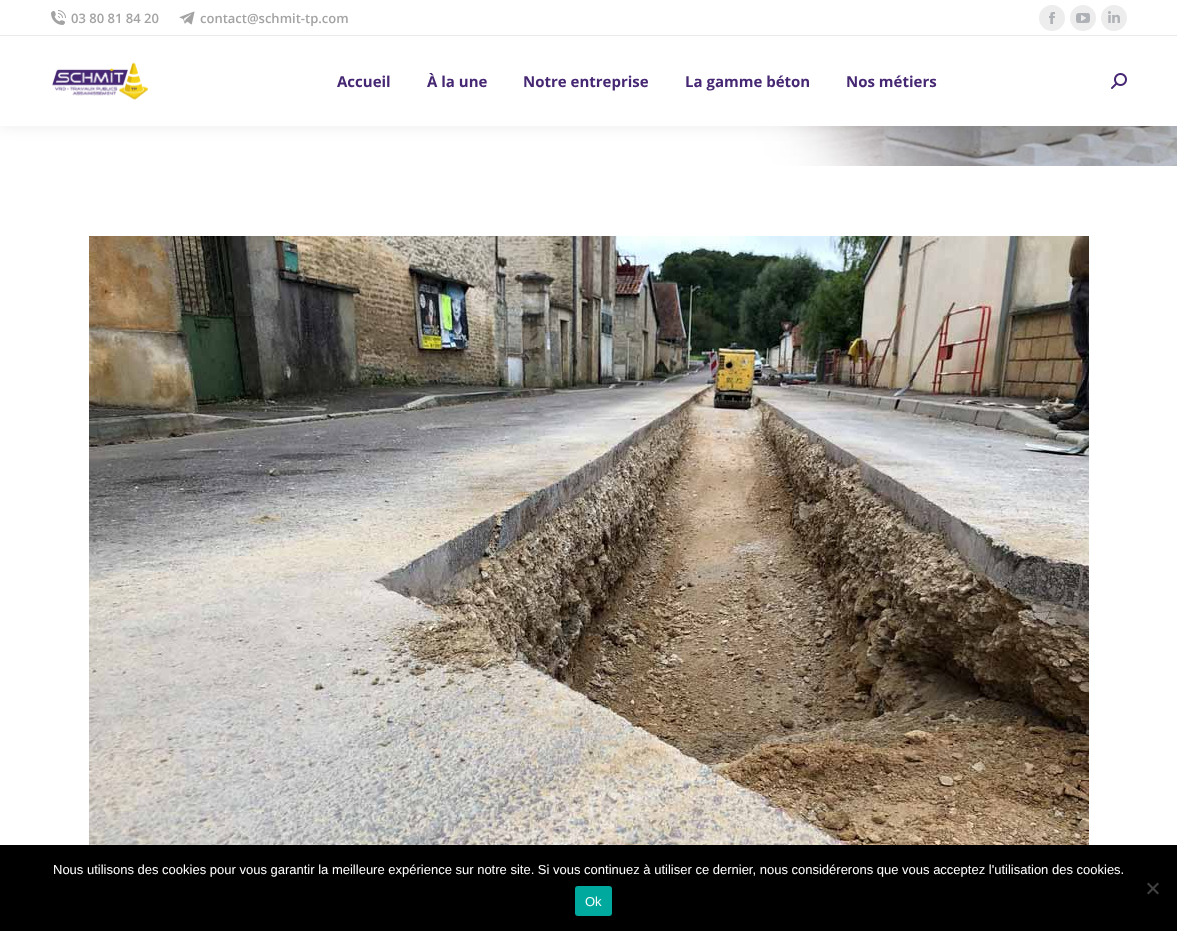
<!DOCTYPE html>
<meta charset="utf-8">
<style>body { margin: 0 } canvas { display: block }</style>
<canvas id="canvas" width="1177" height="931"></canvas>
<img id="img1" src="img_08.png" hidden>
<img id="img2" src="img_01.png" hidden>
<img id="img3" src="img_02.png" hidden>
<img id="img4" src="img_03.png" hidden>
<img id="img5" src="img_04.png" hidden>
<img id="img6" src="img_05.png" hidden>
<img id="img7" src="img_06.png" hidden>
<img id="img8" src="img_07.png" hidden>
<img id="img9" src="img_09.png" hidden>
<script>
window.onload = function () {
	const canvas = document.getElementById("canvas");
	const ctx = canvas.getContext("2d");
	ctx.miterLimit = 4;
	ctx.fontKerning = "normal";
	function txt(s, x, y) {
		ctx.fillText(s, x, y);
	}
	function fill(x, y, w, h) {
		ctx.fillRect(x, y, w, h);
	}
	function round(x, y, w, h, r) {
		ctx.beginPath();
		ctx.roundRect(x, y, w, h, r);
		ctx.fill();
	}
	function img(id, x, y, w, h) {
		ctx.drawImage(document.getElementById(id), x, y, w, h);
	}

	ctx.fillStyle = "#FFFFFF";
	fill(0, 0, 1177, 931);
	img("img1", 0, 126, 1177, 40);
	ctx.fillStyle = "rgba(0, 0, 0, 0.07)";
	ctx.filter = "blur(7.5px)";
	ctx.beginPath();
	ctx.rect(-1, -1, 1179, 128);
	ctx.fill();
	ctx.filter = "none";
	ctx.fillStyle = "#FFFFFF";
	fill(0, 0, 1177, 126);
	img("img2", 51, 10, 15, 15);
	img("img3", 179, 11, 16, 14);
	ctx.fillStyle = "#EDEDED";
	ctx.beginPath();
	ctx.arc(1052, 18, 13, 0, Math.PI * 2);
	ctx.fill();
	img("img4", 1049, 12, 6, 12);
	ctx.beginPath();
	ctx.arc(1083, 18, 13, 0, Math.PI * 2);
	ctx.fill();
	img("img5", 1076, 13, 14, 10);
	ctx.beginPath();
	ctx.arc(1114, 18, 13, 0, Math.PI * 2);
	ctx.fill();
	img("img6", 1108, 11, 12, 12);
	ctx.fillStyle = "#E9E9E9";
	fill(0, 35, 1177, 1);
	img("img7", 52, 62, 97, 38);
	img("img8", 1111, 73, 16, 16);
	img("img9", 89, 236, 1000, 609);
	ctx.fillStyle = "#000000";
	fill(0, 845, 1177, 86);
	ctx.fillStyle = "#404040";
	ctx.beginPath();
	ctx.moveTo(1157.5, 882.5);
	ctx.lineTo(1159, 884);
	ctx.lineTo(1148.5, 894.5);
	ctx.lineTo(1147, 893);
	ctx.closePath();
	ctx.fill();
	ctx.beginPath();
	ctx.moveTo(1147, 884);
	ctx.lineTo(1148.5, 882.5);
	ctx.lineTo(1159, 893);
	ctx.lineTo(1157.5, 894.5);
	ctx.closePath();
	ctx.fill();
	ctx.fillStyle = "#00A99D";
	round(575, 886, 37, 30, 3);
	ctx.font = "600 13px Open Sans";
	ctx.fillStyle = "#A3A3A3";
	txt("03 80 81 84 20", 71, 23);
	txt("contact@schmit-tp.com", 200, 23);
	ctx.font = "bold 15px Open Sans";
	ctx.fillStyle = "#462773";
	txt("Accueil", 337, 87);
	txt("À la une", 427, 87);
	txt("Notre entreprise", 523, 87);
	txt("La gamme béton", 685, 87);
	txt("Nos métiers", 846, 87);
	ctx.font = "13px Liberation Sans";
	ctx.fillStyle = "#FFFFFF";
	txt("Nous utilisons des cookies pour vous garantir la meilleure expérience sur notre site. Si vous continuez à utiliser ce dernier, nous considérerons que vous acceptez l'utilisation des cookies.", 53, 874);
	txt("Ok", 585, 906);
};
</script>
